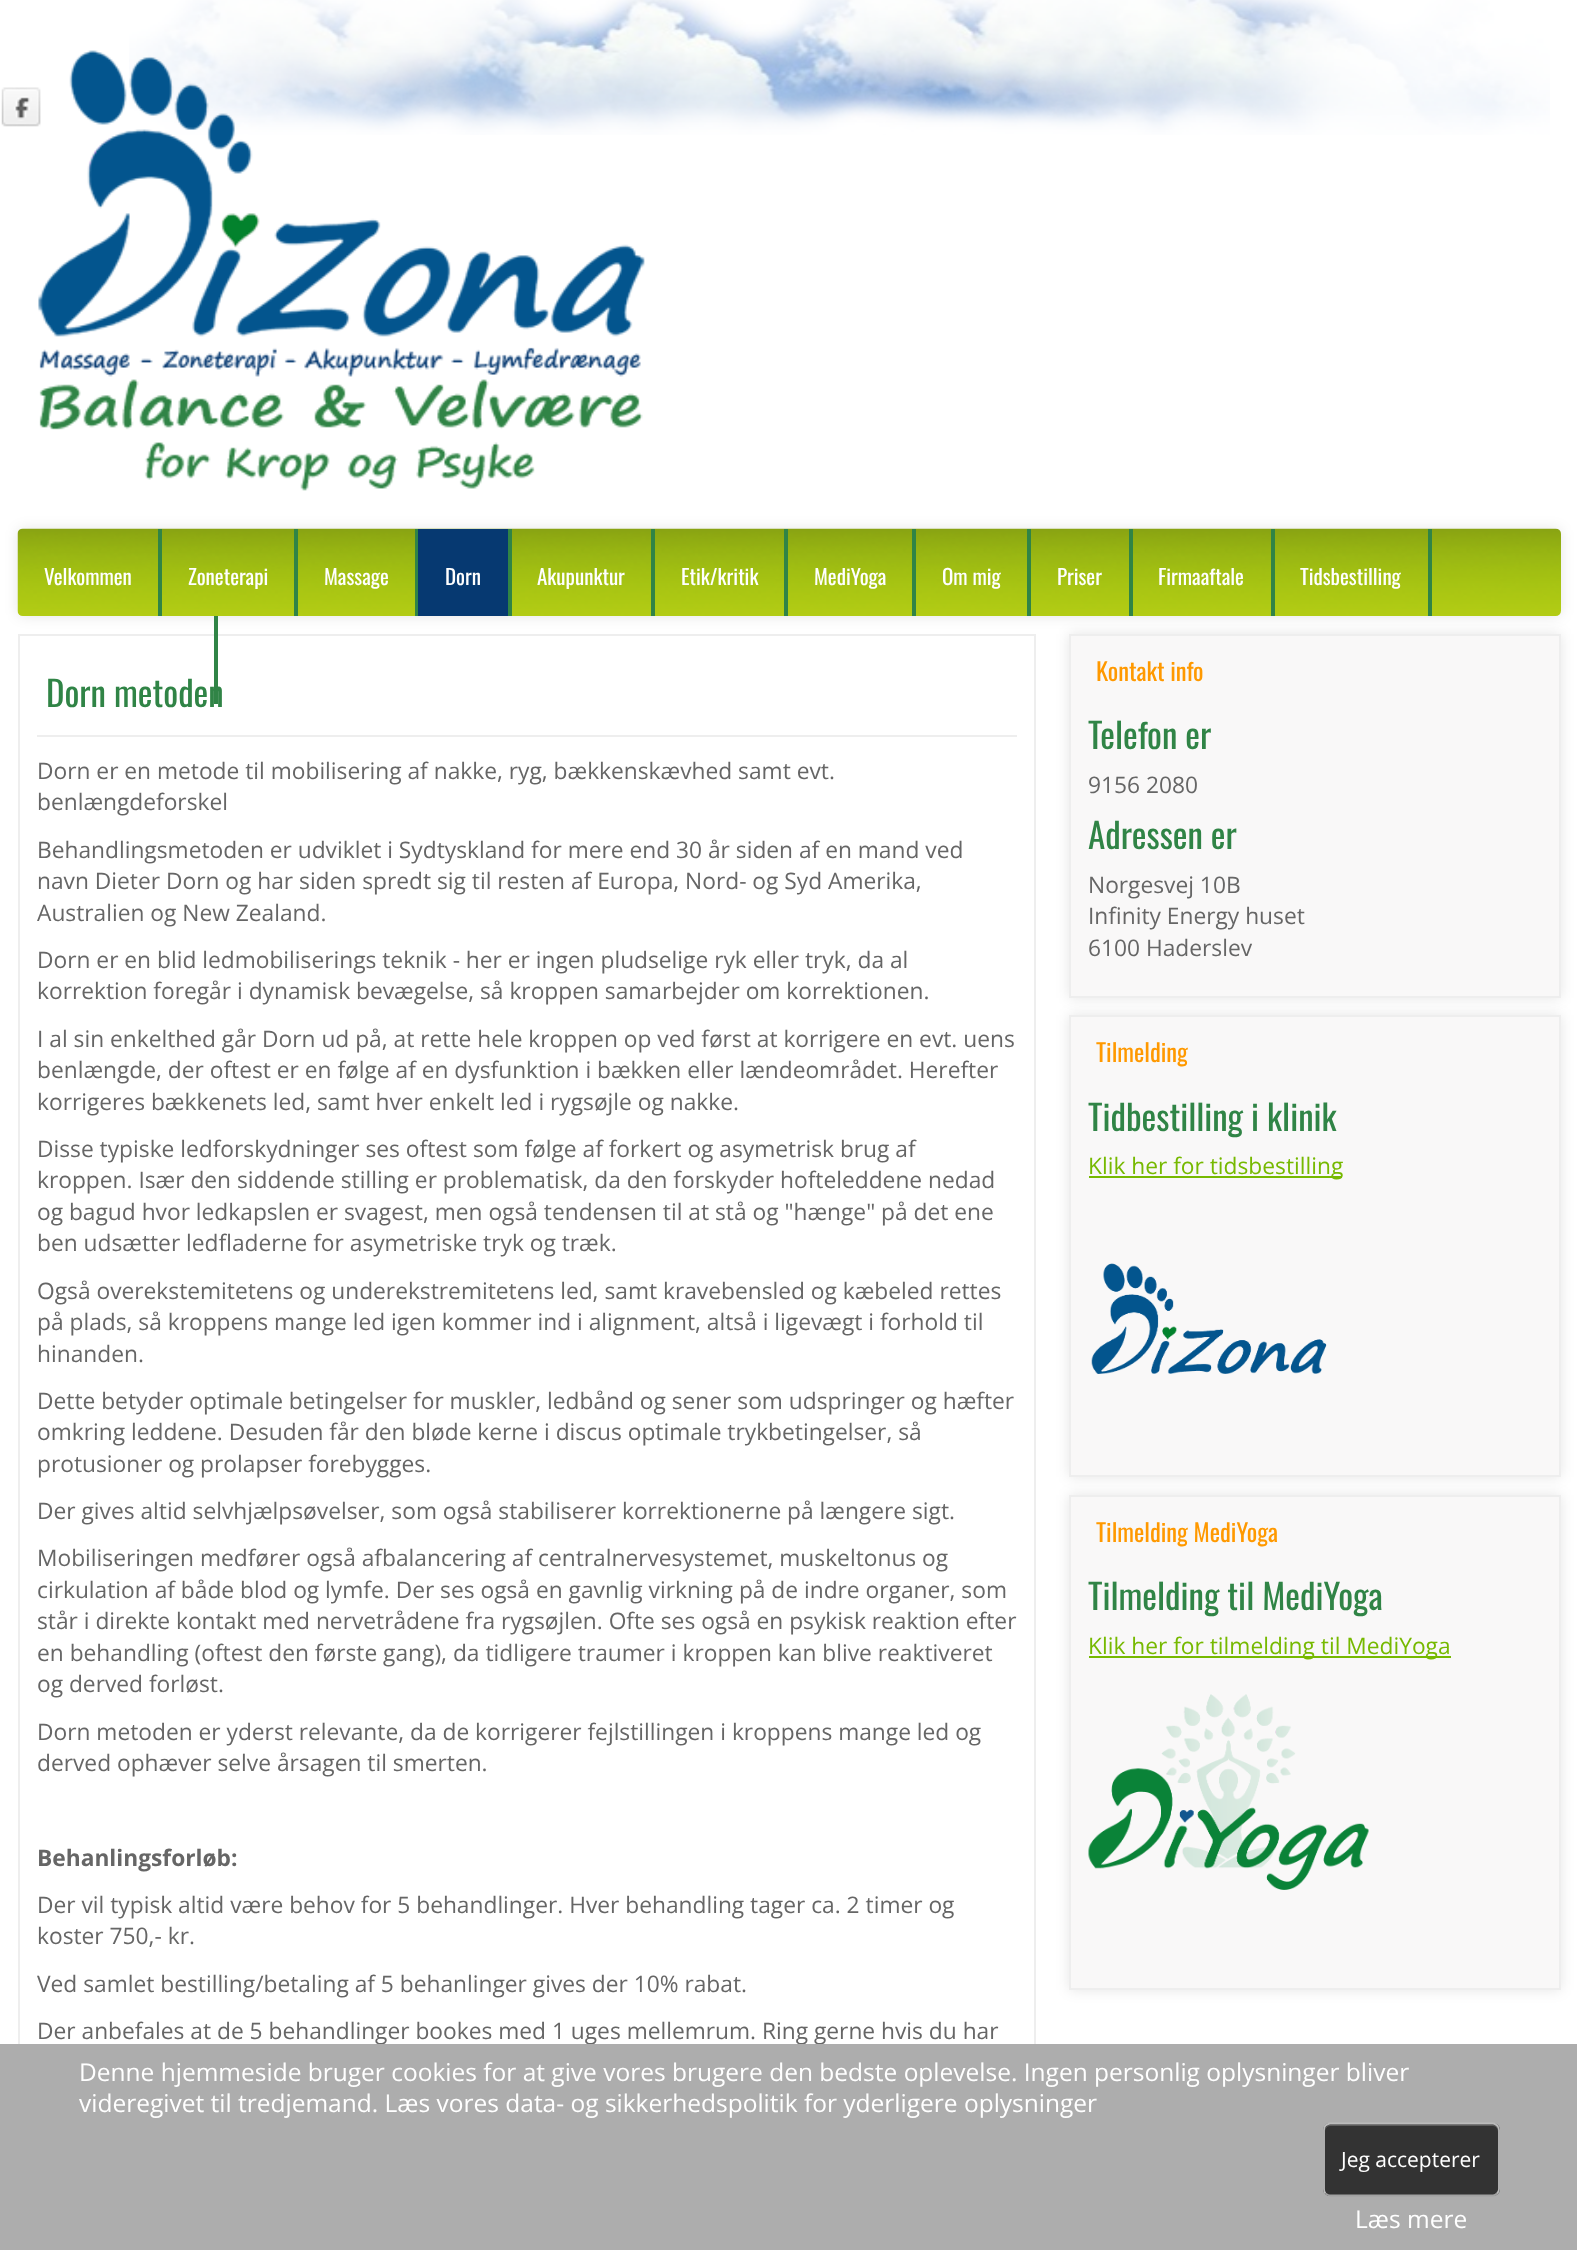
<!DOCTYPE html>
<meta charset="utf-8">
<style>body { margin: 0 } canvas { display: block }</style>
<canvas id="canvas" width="1577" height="2250"></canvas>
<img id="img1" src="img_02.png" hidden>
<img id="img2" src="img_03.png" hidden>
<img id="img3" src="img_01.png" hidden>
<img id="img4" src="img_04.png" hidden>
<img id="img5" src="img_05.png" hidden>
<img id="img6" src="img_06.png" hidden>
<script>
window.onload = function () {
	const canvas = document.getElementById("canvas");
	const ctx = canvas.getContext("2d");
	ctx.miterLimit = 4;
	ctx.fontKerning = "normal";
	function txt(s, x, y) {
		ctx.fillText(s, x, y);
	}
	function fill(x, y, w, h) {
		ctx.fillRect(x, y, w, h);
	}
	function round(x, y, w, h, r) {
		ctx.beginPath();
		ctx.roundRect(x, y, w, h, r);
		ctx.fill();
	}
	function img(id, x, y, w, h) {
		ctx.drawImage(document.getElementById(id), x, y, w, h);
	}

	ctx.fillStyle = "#FFFFFF";
	fill(0, 0, 1577, 2250);
	img("img1", 129, 0, 1421, 135);
	img("img2", 38, 50, 607, 441);
	img("img3", 1, 87, 40, 40);
	ctx.strokeStyle = "#EEEEEE";
	ctx.lineWidth = 2;
	ctx.strokeRect(19, 635, 1016, 1476);
	ctx.fillStyle = "rgba(0, 0, 0, 0.1)";
	ctx.filter = "blur(7px)";
	ctx.beginPath();
	ctx.rect(1069, 634, 492, 364);
	ctx.fill();
	ctx.filter = "none";
	ctx.fillStyle = "#F9F8F8";
	ctx.beginPath();
	ctx.rect(1070, 635, 490, 362);
	ctx.fill();
	ctx.stroke();
	ctx.fillStyle = "rgba(0, 0, 0, 0.1)";
	ctx.filter = "blur(7px)";
	ctx.beginPath();
	ctx.roundRect(18, 529, 1543, 87, 5);
	ctx.fill();
	ctx.filter = "none";
	img("img4", 17, 528, 1544, 88);
	ctx.fillStyle = "#308446";
	fill(158, 529, 4, 87);
	fill(294, 529, 4, 87);
	fill(415, 529, 3, 87);
	ctx.fillStyle = "#063971";
	fill(418, 529, 90, 87);
	ctx.fillStyle = "#308446";
	fill(508, 529, 4, 87);
	fill(651, 529, 4, 87);
	fill(784, 529, 4, 87);
	fill(912, 529, 4, 87);
	fill(1027, 529, 4, 87);
	fill(1129, 529, 4, 87);
	fill(1271, 529, 4, 87);
	fill(1428, 529, 4, 87);
	fill(214, 616, 4, 88);
	ctx.fillStyle = "#EEEEEE";
	fill(37, 735, 980, 2);
	ctx.fillStyle = "rgba(0, 0, 0, 0.1)";
	ctx.filter = "blur(7px)";
	ctx.beginPath();
	ctx.rect(1069, 1015, 492, 462);
	ctx.fill();
	ctx.filter = "none";
	ctx.fillStyle = "#F9F8F8";
	ctx.beginPath();
	ctx.rect(1070, 1016, 490, 460);
	ctx.fill();
	ctx.stroke();
	ctx.fillStyle = "#76B900";
	fill(1089, 1176, 253, 2);
	img("img5", 1091, 1263, 236, 111);
	ctx.fillStyle = "rgba(0, 0, 0, 0.1)";
	ctx.filter = "blur(7px)";
	ctx.beginPath();
	ctx.rect(1069, 1495, 492, 495);
	ctx.fill();
	ctx.filter = "none";
	ctx.fillStyle = "#F9F8F8";
	ctx.beginPath();
	ctx.rect(1070, 1496, 490, 493);
	ctx.fill();
	ctx.stroke();
	ctx.fillStyle = "#76B900";
	fill(1089, 1656, 362, 2);
	img("img6", 1088, 1694, 281, 196);
	ctx.font = "21px Oswald";
	ctx.fillStyle = "#FFFFFF";
	txt("Velkommen", 44, 585);
	txt("Zoneterapi", 188, 585);
	txt("Massage", 324, 585);
	txt("Dorn", 445, 585);
	txt("Akupunktur", 537, 585);
	txt("Etik/kritik", 681, 585);
	txt("MediYoga", 814, 585);
	txt("Om mig", 942, 585);
	txt("Priser", 1057, 585);
	txt("Firmaaftale", 1158, 585);
	txt("Tidsbestilling", 1300, 585);
	ctx.font = "35px Oswald";
	ctx.fillStyle = "#308446";
	txt("Dorn metoden", 46, 707);
	ctx.font = "22.75px Open Sans";
	ctx.fillStyle = "#666666";
	txt("Dorn er en metode til mobilisering af nakke, ryg, bækkenskævhed samt evt.", 37, 779);
	txt("benlængdeforskel", 37, 810);
	txt("Behandlingsmetoden er udviklet i Sydtyskland for mere end 30 år siden af en mand ved", 37, 858);
	txt("navn Dieter Dorn og har siden spredt sig til resten af Europa, Nord- og Syd Amerika,", 37, 889);
	txt("Australien og New Zealand.", 37, 921);
	txt("Dorn er en blid ledmobiliserings teknik - her er ingen pludselige ryk eller tryk, da al", 37, 968);
	txt("korrektion foregår i dynamisk bevægelse, så kroppen samarbejder om korrektionen.", 37, 999);
	txt("I al sin enkelthed går Dorn ud på, at rette hele kroppen op ved først at korrigere en evt. uens", 37, 1047);
	txt("benlængde, der oftest er en følge af en dysfunktion i bækken eller lændeområdet. Herefter", 37, 1078);
	txt("korrigeres bækkenets led, samt hver enkelt led i rygsøjle og nakke.", 37, 1110);
	txt("Disse typiske ledforskydninger ses oftest som følge af forkert og asymetrisk brug af", 37, 1157);
	txt("kroppen. Især den siddende stilling er problematisk, da den forskyder hofteleddene nedad", 37, 1188);
	txt("og bagud hvor ledkapslen er svagest, men også tendensen til at stå og \"hænge\" på det ene", 37, 1220);
	txt("ben udsætter ledfladerne for asymetriske tryk og træk.", 37, 1251);
	txt("Også overekstemitetens og underekstremitetens led, samt kravebensled og kæbeled rettes", 37, 1299);
	txt("på plads, så kroppens mange led igen kommer ind i alignment, altså i ligevægt i forhold til", 37, 1330);
	txt("hinanden.", 37, 1362);
	txt("Dette betyder optimale betingelser for muskler, ledbånd og sener som udspringer og hæfter", 37, 1409);
	txt("omkring leddene. Desuden får den bløde kerne i discus optimale trykbetingelser, så", 37, 1440);
	txt("protusioner og prolapser forebygges.", 37, 1472);
	txt("Der gives altid selvhjælpsøvelser, som også stabiliserer korrektionerne på længere sigt.", 37, 1519);
	txt("Mobiliseringen medfører også afbalancering af centralnervesystemet, muskeltonus og", 37, 1566);
	txt("cirkulation af både blod og lymfe. Der ses også en gavnlig virkning på de indre organer, som", 37, 1598);
	txt("står i direkte kontakt med nervetrådene fra rygsøjlen. Ofte ses også en psykisk reaktion efter", 37, 1629);
	txt("en behandling (oftest den første gang), da tidligere traumer i kroppen kan blive reaktiveret", 37, 1661);
	txt("og derved forløst.", 37, 1692);
	txt("Dorn metoden er yderst relevante, da de korrigerer fejlstillingen i kroppens mange led og", 37, 1740);
	txt("derved ophæver selve årsagen til smerten.", 37, 1771);
	ctx.font = "bold 22.75px Open Sans";
	txt("Behanlingsforløb:", 37, 1866);
	ctx.font = "22.75px Open Sans";
	txt("Der vil typisk altid være behov for 5 behandlinger. Hver behandling tager ca. 2 timer og", 37, 1913);
	txt("koster 750,- kr.", 37, 1944);
	txt("Ved samlet bestilling/betaling af 5 behanlinger gives der 10% rabat.", 37, 1992);
	txt("Der anbefales at de 5 behandlinger bookes med 1 uges mellemrum. Ring gerne hvis du har", 37, 2039);
	ctx.font = "24.5px Oswald";
	ctx.fillStyle = "#FF9900";
	txt("Kontakt info", 1096, 681);
	ctx.font = "35px Oswald";
	ctx.fillStyle = "#308446";
	txt("Telefon er", 1088, 749);
	ctx.font = "22.75px Open Sans";
	ctx.fillStyle = "#666666";
	txt("9156 2080", 1088, 793);
	ctx.font = "35px Oswald";
	ctx.fillStyle = "#308446";
	txt("Adressen er", 1088, 849);
	ctx.font = "22.75px Open Sans";
	ctx.fillStyle = "#666666";
	txt("Norgesvej 10B", 1088, 893);
	txt("Infinity Energy huset", 1088, 924);
	txt("6100 Haderslev", 1088, 956);
	ctx.font = "24.5px Oswald";
	ctx.fillStyle = "#FF9900";
	txt("Tilmelding", 1096, 1062);
	ctx.font = "35px Oswald";
	ctx.fillStyle = "#308446";
	txt("Tidbestilling i klinik", 1088, 1131);
	ctx.font = "22.75px Open Sans";
	ctx.fillStyle = "#76B900";
	txt("Klik her for tidsbestilling", 1088, 1174);
	ctx.font = "24.5px Oswald";
	ctx.fillStyle = "#FF9900";
	txt("Tilmelding MediYoga", 1096, 1542);
	ctx.font = "35px Oswald";
	ctx.fillStyle = "#308446";
	txt("Tilmelding til MediYoga", 1088, 1610);
	ctx.font = "22.75px Open Sans";
	ctx.fillStyle = "#76B900";
	txt("Klik her for tilmelding til MediYoga", 1088, 1654);
	ctx.fillStyle = "#ADADAD";
	fill(0, 2044, 1577, 206);
	ctx.font = "24.5px Open Sans";
	ctx.fillStyle = "#FFFFFF";
	txt("Denne hjemmeside bruger cookies for at give vores brugere den bedste oplevelse. Ingen personlig oplysninger bliver", 79, 2081);
	txt("videregivet til tredjemand. Læs vores data- og sikkerhedspolitik for yderligere oplysninger", 79, 2112);
	ctx.fillStyle = "#333333";
	round(1323, 2123, 177, 73, 7);
	ctx.fillStyle = "#5C5C5C";
	ctx.beginPath();
	ctx.moveTo(1330, 2126);
	ctx.lineTo(1493, 2126);
	ctx.bezierCurveTo(1496, 2126, 1498, 2129, 1498, 2132);
	ctx.lineTo(1498, 2130);
	ctx.bezierCurveTo(1498, 2127, 1496, 2125, 1493, 2125);
	ctx.lineTo(1330, 2125);
	ctx.bezierCurveTo(1327, 2125, 1325, 2127, 1325, 2130);
	ctx.lineTo(1325, 2132);
	ctx.bezierCurveTo(1325, 2129, 1327, 2126, 1330, 2126);
	ctx.closePath();
	ctx.fill();
	ctx.beginPath();
	ctx.moveTo(1497, 2193.5);
	ctx.bezierCurveTo(1496, 2194.5, 1494.5, 2195.5, 1493, 2195.5);
	ctx.lineTo(1330, 2195.5);
	ctx.bezierCurveTo(1328.5, 2195.5, 1327, 2194.5, 1325.5, 2193.5);
	ctx.strokeStyle = "#A2A2A2";
	ctx.lineWidth = 1.8;
	ctx.stroke();
	ctx.beginPath();
	ctx.moveTo(1325.5, 2193.5);
	ctx.bezierCurveTo(1324.5, 2192.5, 1324, 2191, 1324, 2189);
	ctx.lineTo(1324, 2130);
	ctx.bezierCurveTo(1324, 2128, 1324.5, 2126.5, 1325.5, 2125.5);
	ctx.bezierCurveTo(1327, 2124.5, 1328.5, 2123.5, 1330, 2123.5);
	ctx.lineTo(1493, 2123.5);
	ctx.bezierCurveTo(1494.5, 2123.5, 1496, 2124.5, 1497, 2125.5);
	ctx.bezierCurveTo(1498, 2126.5, 1499, 2128, 1499, 2130);
	ctx.lineTo(1499, 2189);
	ctx.bezierCurveTo(1499, 2191, 1498, 2192.5, 1497, 2193.5);
	ctx.strokeStyle = "#BBBBBB";
	ctx.stroke();
	ctx.font = "21px Open Sans";
	ctx.fillStyle = "#FFFFFF";
	txt("Jeg accepterer", 1341, 2167);
	ctx.font = "24.5px Open Sans";
	txt("Læs mere", 1355, 2228);
};
</script>
